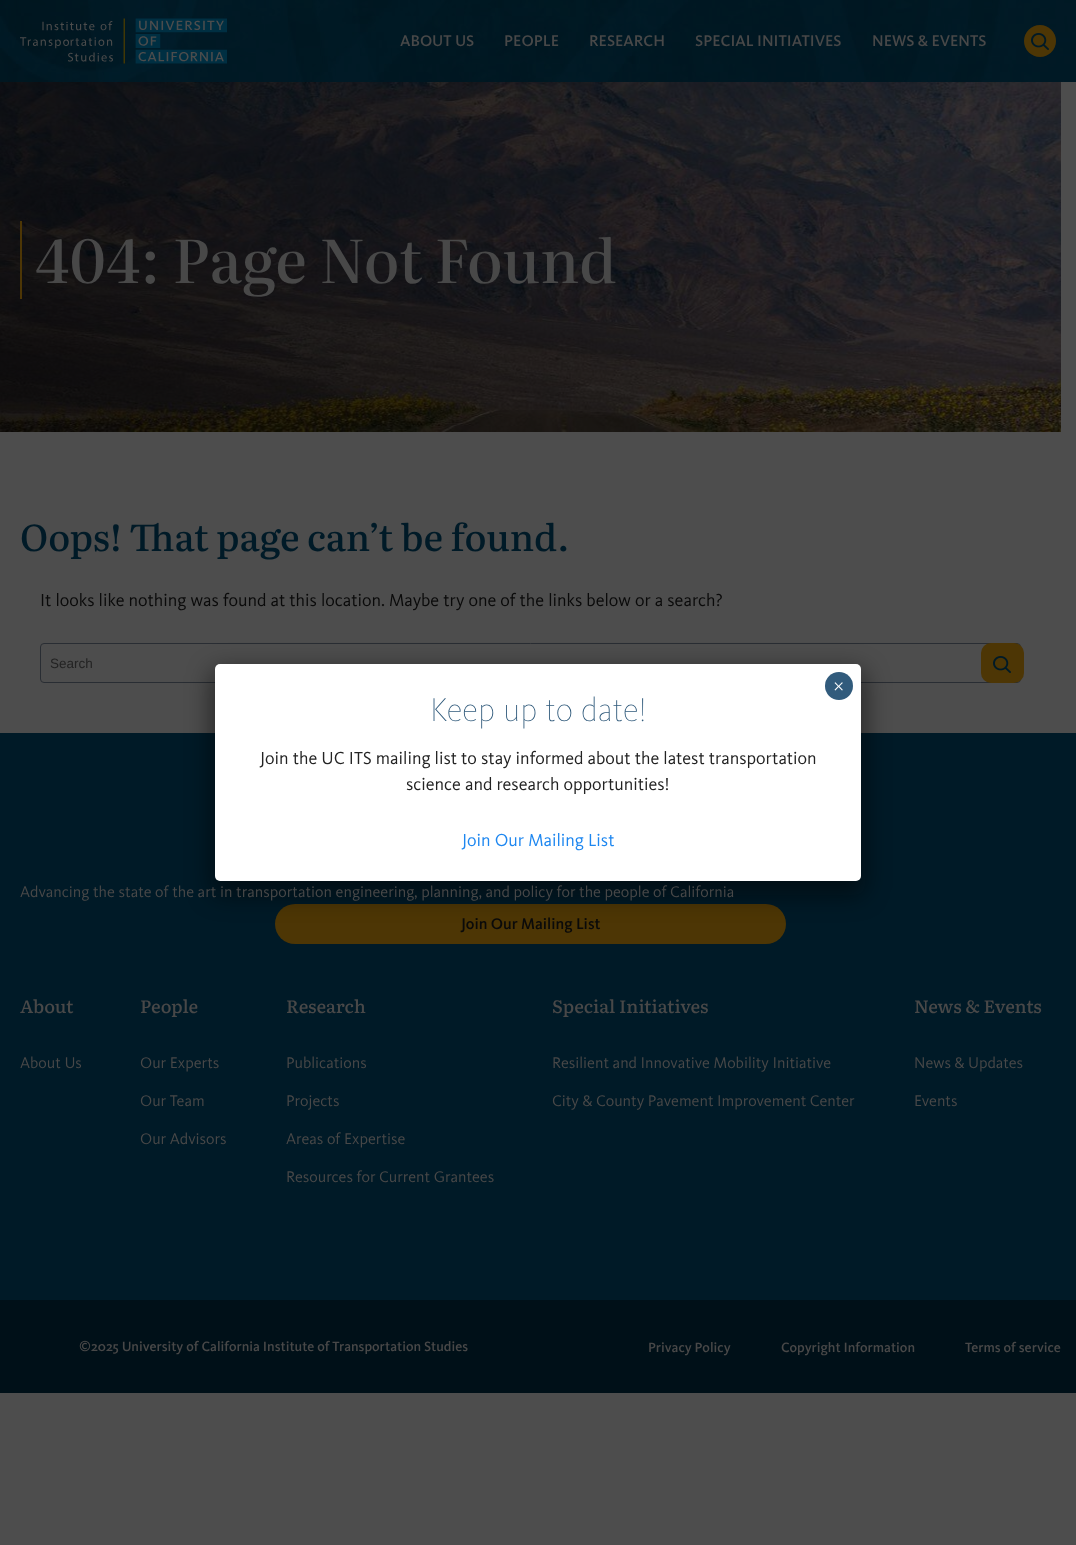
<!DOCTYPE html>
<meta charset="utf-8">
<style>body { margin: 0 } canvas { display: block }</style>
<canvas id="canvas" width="1076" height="1545"></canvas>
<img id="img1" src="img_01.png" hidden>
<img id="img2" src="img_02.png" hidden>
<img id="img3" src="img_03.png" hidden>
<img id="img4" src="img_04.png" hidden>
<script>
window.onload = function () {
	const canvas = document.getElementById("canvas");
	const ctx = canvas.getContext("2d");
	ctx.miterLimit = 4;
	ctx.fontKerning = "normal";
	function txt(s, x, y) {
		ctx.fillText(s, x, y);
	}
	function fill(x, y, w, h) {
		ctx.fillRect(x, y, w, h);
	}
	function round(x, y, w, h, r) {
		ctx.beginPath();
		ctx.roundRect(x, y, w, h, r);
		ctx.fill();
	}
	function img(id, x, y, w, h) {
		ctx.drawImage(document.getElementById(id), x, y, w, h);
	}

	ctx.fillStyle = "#4D4D4D";
	fill(0, 0, 1076, 1545);
	img("img1", 0, 0, 1076, 82);
	img("img2", 20, 18, 207, 46);
	ctx.fillStyle = "#4D3605";
	ctx.beginPath();
	ctx.arc(1040, 41, 16, 0, Math.PI * 2);
	ctx.fill();
	img("img3", 1031, 33, 18, 17);
	img("img4", 0, 82, 1061, 350);
	fill(20, 221, 2, 78);
	ctx.beginPath();
	ctx.roundRect(40.5, 643.5, 980, 39, 3.5);
	ctx.strokeStyle = "#292D33";
	ctx.stroke();
	round(981, 643, 43, 40, 10);
	img("img3", 993, 656, 18, 17);
	ctx.fillStyle = "#001A27";
	fill(0, 733, 1076, 567);
	ctx.fillStyle = "#4D3605";
	round(275, 904, 511, 40, 20);
	ctx.fillStyle = "rgba(2, 2, 2, 0.5)";
	ctx.filter = "blur(12.5px)";
	ctx.beginPath();
	ctx.roundRect(211, 670, 654, 225, 9);
	ctx.fill();
	ctx.filter = "none";
	ctx.fillStyle = "#FFFFFF";
	round(215, 664, 646, 217, 5);
	ctx.fillStyle = "#315B7C";
	ctx.beginPath();
	ctx.arc(839, 686, 14, 0, Math.PI * 2);
	ctx.fill();
	ctx.fillStyle = "#001018";
	fill(0, 1300, 1076, 93);
	ctx.font = "500 16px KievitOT";
	ctx.fillStyle = "#484848";
	txt("ABOUT US", 400, 46);
	txt("PEOPLE", 504, 46);
	txt("RESEARCH", 589, 46);
	txt("SPECIAL INITIATIVES", 695, 46);
	txt("NEWS & EVENTS", 872, 46);
	ctx.font = "500 60px 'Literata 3'";
	txt("404: Page Not Found", 35, 283);
	ctx.font = "500 36.9px Literata";
	ctx.fillStyle = "#001A27";
	txt("Oops! That page can’t be found.", 20, 551);
	ctx.font = "18px KievitOT";
	ctx.fillStyle = "#0A0A0A";
	txt("It looks like nothing was found at this location. Maybe try one of the links below or a search?", 40, 606);
	ctx.font = "13.5px Liberation Sans";
	ctx.fillStyle = "#232323";
	txt("Search", 50, 668);
	ctx.font = "20px Liberation Serif";
	ctx.fillStyle = "#FFFFFF";
	txt("×", 833, 693);
	ctx.font = "100 34px KievitOT";
	ctx.fillStyle = "#315B7C";
	txt("Keep up to date!", 430, 721);
	ctx.font = "18px KievitOT";
	ctx.fillStyle = "#232323";
	txt("Join the UC ITS mailing list to stay informed about the latest transportation", 260, 764);
	txt("science and research opportunities!", 406, 790);
	ctx.fillStyle = "#1E87F0";
	txt("Join Our Mailing List", 462, 846);
	ctx.font = "16px KievitOT";
	ctx.fillStyle = "#484848";
	txt("Advancing the state of the art in transportation engineering, planning, and policy for the people of California", 20, 897);
	ctx.font = "500 16px KievitOT";
	ctx.fillStyle = "#0A0A0A";
	txt("Join Our Mailing List", 461, 929);
	ctx.font = "500 18px 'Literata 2'";
	ctx.fillStyle = "#484848";
	txt("About", 20, 1013);
	ctx.font = "16px KievitOT";
	txt("About Us", 20, 1068);
	ctx.font = "500 18px 'Literata 2'";
	txt("People", 140, 1013);
	ctx.font = "16px KievitOT";
	txt("Our Experts", 140, 1068);
	txt("Our Team", 140, 1106);
	txt("Our Advisors", 140, 1144);
	ctx.font = "500 18px 'Literata 2'";
	txt("Research", 286, 1013);
	ctx.font = "16px KievitOT";
	txt("Publications", 286, 1068);
	txt("Projects", 286, 1106);
	txt("Areas of Expertise", 286, 1144);
	txt("Resources for Current Grantees", 286, 1182);
	ctx.font = "500 18px 'Literata 2'";
	txt("Special Initiatives", 552, 1013);
	ctx.font = "16px KievitOT";
	txt("Resilient and Innovative Mobility Initiative", 552, 1068);
	txt("City & County Pavement Improvement Center", 552, 1106);
	ctx.font = "500 18px 'Literata 2'";
	txt("News & Events", 914, 1013);
	ctx.font = "16px KievitOT";
	txt("News & Updates", 914, 1068);
	txt("Events", 914, 1106);
	ctx.font = "500 14px KievitOT";
	txt("©2025 University of California Institute of Transportation Studies", 79, 1351);
	txt("Privacy Policy", 648, 1352);
	txt("Copyright Information", 781, 1352);
	txt("Terms of service", 965, 1352);
};
</script>
